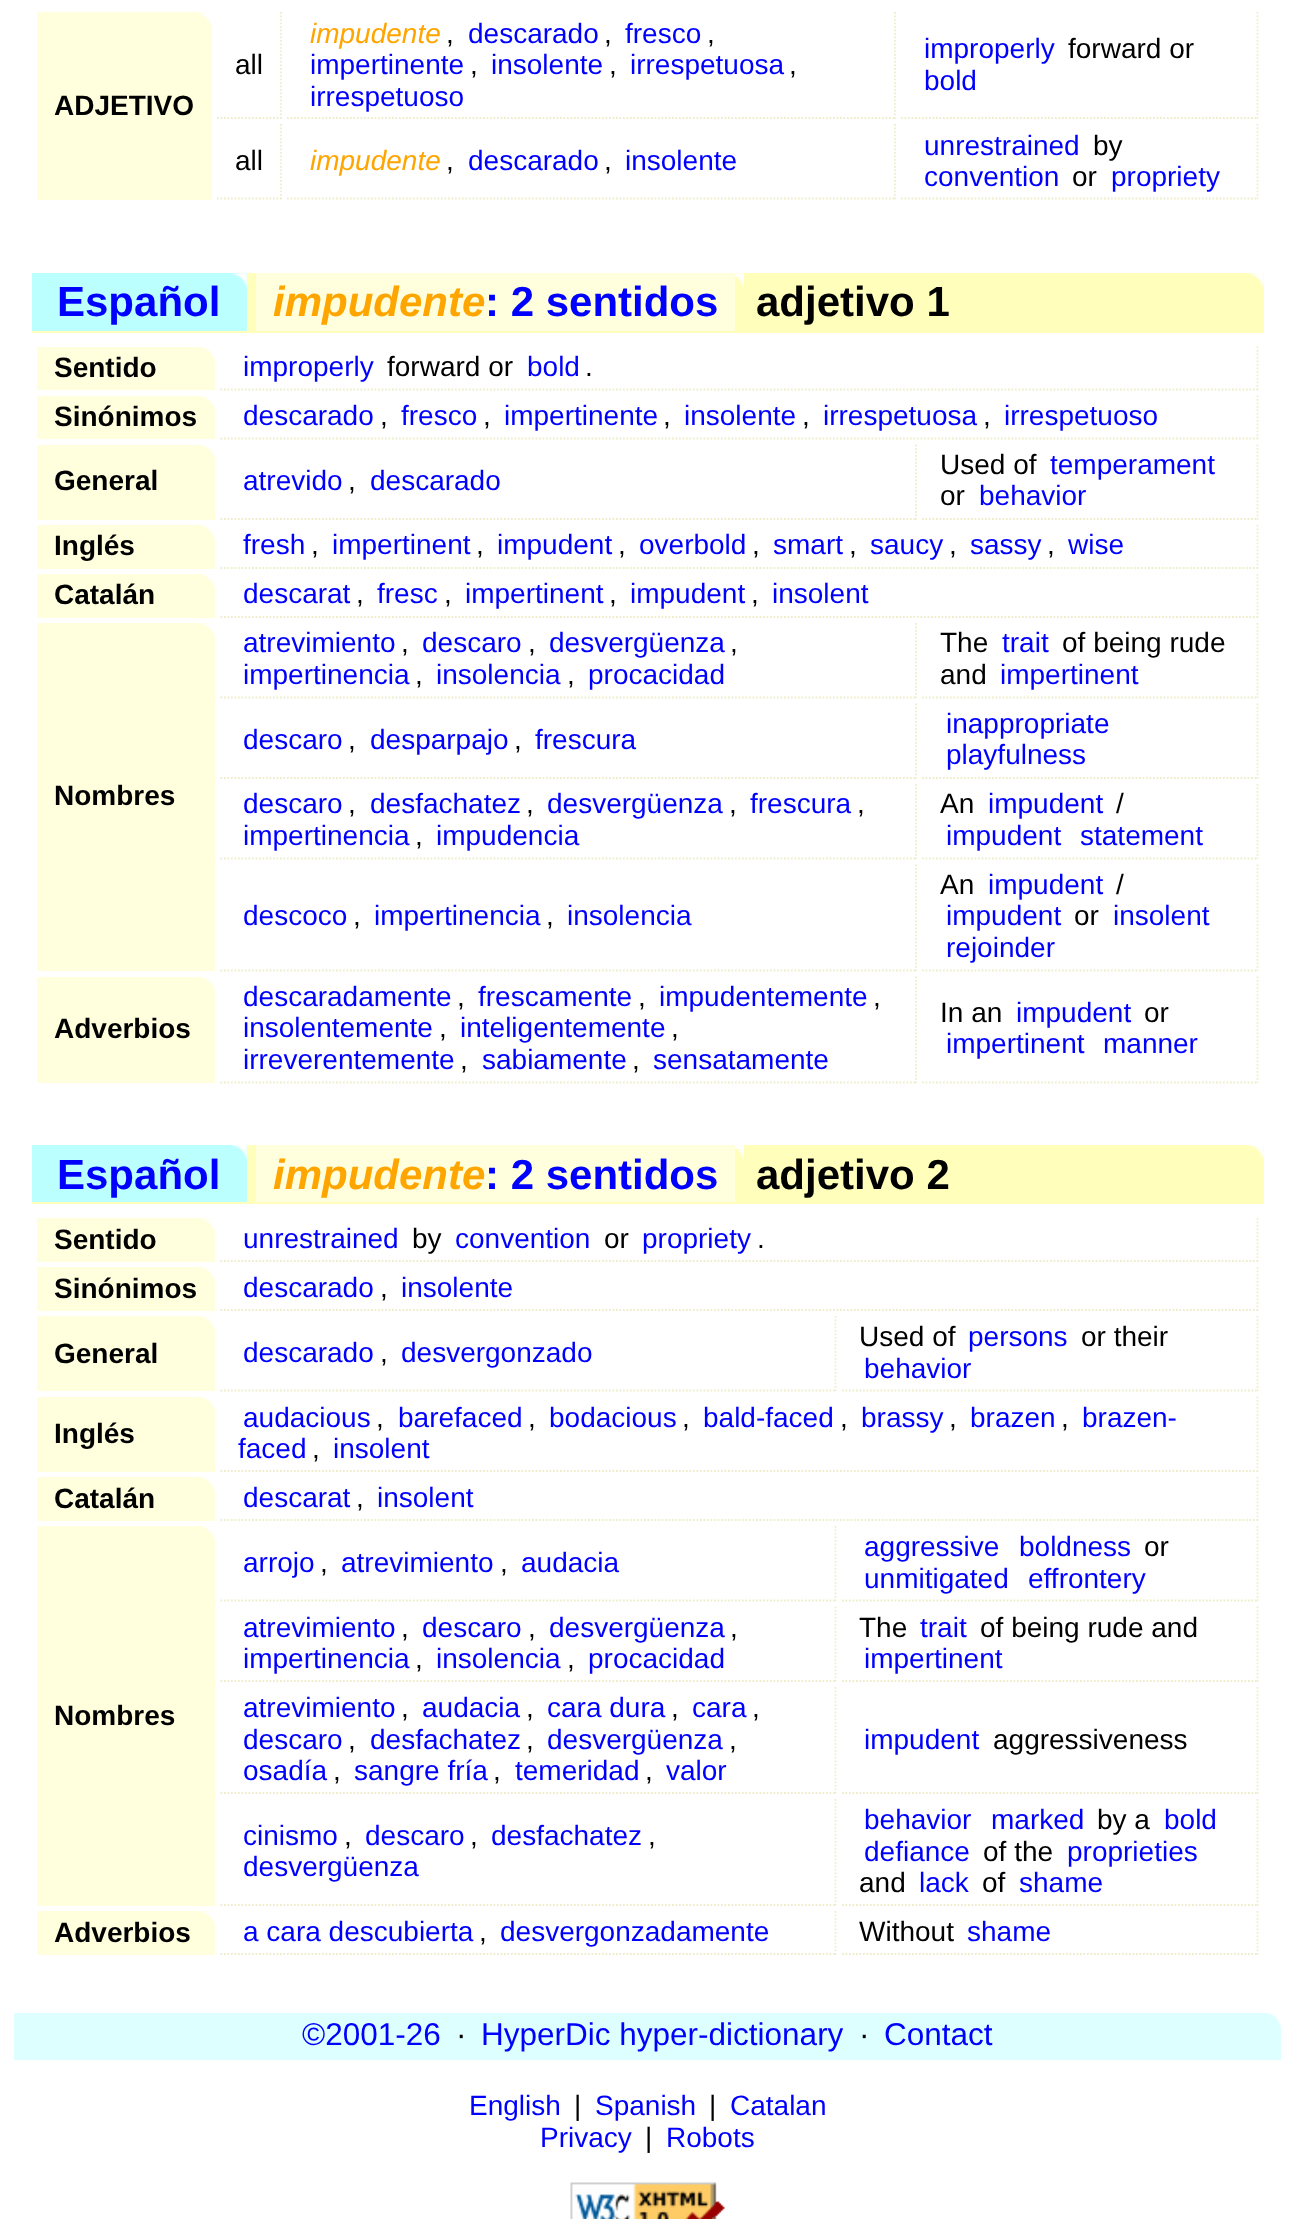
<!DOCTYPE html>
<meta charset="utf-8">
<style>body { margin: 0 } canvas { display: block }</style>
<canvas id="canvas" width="1295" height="2219"></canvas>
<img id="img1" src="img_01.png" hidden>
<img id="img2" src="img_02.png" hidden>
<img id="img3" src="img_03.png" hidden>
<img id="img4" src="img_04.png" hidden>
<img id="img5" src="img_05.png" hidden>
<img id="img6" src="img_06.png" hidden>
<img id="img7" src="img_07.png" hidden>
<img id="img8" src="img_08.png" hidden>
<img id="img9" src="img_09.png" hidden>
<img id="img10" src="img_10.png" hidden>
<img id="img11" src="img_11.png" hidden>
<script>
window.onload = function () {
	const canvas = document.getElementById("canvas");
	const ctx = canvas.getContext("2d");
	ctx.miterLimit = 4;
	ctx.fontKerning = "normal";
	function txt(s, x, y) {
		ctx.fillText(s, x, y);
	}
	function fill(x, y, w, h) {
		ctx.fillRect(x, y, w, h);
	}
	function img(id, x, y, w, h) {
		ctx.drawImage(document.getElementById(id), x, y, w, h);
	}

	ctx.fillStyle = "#FFFFFF";
	fill(0, 0, 1295, 2219);
	ctx.beginPath();
	ctx.moveTo(281, 12);
	ctx.lineTo(281, 119);
	ctx.strokeStyle = "#EEEECC";
	ctx.lineWidth = 1.8;
	ctx.setLineDash([1.75, 1.75]);
	ctx.stroke();
	ctx.beginPath();
	ctx.moveTo(217, 118);
	ctx.lineTo(282, 118);
	ctx.stroke();
	ctx.beginPath();
	ctx.moveTo(895, 12);
	ctx.lineTo(895, 119);
	ctx.stroke();
	ctx.beginPath();
	ctx.moveTo(287, 118);
	ctx.lineTo(896, 118);
	ctx.stroke();
	ctx.beginPath();
	ctx.moveTo(1257.5, 12);
	ctx.lineTo(1257.5, 119);
	ctx.stroke();
	ctx.beginPath();
	ctx.moveTo(901, 118);
	ctx.lineTo(1258, 118);
	ctx.stroke();
	ctx.fillStyle = "#FFFFDD";
	fill(37, 12, 175, 188);
	img("img1", 197, 12, 15, 15);
	ctx.beginPath();
	ctx.moveTo(281, 124);
	ctx.lineTo(281, 199.5);
	ctx.stroke();
	ctx.beginPath();
	ctx.moveTo(217, 198.5);
	ctx.lineTo(282, 198.5);
	ctx.stroke();
	ctx.beginPath();
	ctx.moveTo(895, 124);
	ctx.lineTo(895, 199.5);
	ctx.stroke();
	ctx.beginPath();
	ctx.moveTo(287, 198.5);
	ctx.lineTo(896, 198.5);
	ctx.stroke();
	ctx.beginPath();
	ctx.moveTo(1257.5, 124);
	ctx.lineTo(1257.5, 199.5);
	ctx.stroke();
	ctx.beginPath();
	ctx.moveTo(901, 198.5);
	ctx.lineTo(1258, 198.5);
	ctx.stroke();
	ctx.fillStyle = "#FFFFBB";
	fill(32, 273, 1232, 60);
	img("img2", 1248, 273, 16, 16);
	ctx.fillStyle = "#BBFFFF";
	fill(32, 273, 215, 58);
	img("img3", 231, 273, 16, 16);
	img("img4", 735, 273, 9, 16);
	ctx.fillStyle = "#FFFFDD";
	fill(256, 273, 479, 58);
	fill(37, 347, 178, 43);
	img("img5", 200, 347, 15, 15);
	ctx.beginPath();
	ctx.moveTo(1257.5, 346.5);
	ctx.lineTo(1257.5, 390);
	ctx.stroke();
	ctx.beginPath();
	ctx.moveTo(220.5, 389.5);
	ctx.lineTo(1258, 389.5);
	ctx.stroke();
	fill(37, 396, 178, 43);
	img("img5", 200, 396, 15, 15);
	ctx.beginPath();
	ctx.moveTo(1257.5, 395.5);
	ctx.lineTo(1257.5, 439);
	ctx.stroke();
	ctx.beginPath();
	ctx.moveTo(220.5, 438.5);
	ctx.lineTo(1258, 438.5);
	ctx.stroke();
	fill(37, 445, 178, 75);
	img("img5", 200, 445, 15, 15);
	ctx.beginPath();
	ctx.moveTo(916, 444.5);
	ctx.lineTo(916, 520);
	ctx.stroke();
	ctx.beginPath();
	ctx.moveTo(220.5, 519);
	ctx.lineTo(917, 519);
	ctx.stroke();
	ctx.beginPath();
	ctx.moveTo(1257.5, 444.5);
	ctx.lineTo(1257.5, 520);
	ctx.stroke();
	ctx.beginPath();
	ctx.moveTo(922, 519);
	ctx.lineTo(1258, 519);
	ctx.stroke();
	fill(37, 525, 178, 44);
	img("img6", 201, 525, 14, 15);
	ctx.beginPath();
	ctx.moveTo(1257.5, 525);
	ctx.lineTo(1257.5, 569);
	ctx.stroke();
	ctx.beginPath();
	ctx.moveTo(220.5, 568);
	ctx.lineTo(1258, 568);
	ctx.stroke();
	fill(37, 574, 178, 44);
	img("img6", 201, 574, 14, 15);
	ctx.beginPath();
	ctx.moveTo(1257.5, 574);
	ctx.lineTo(1257.5, 618);
	ctx.stroke();
	ctx.beginPath();
	ctx.moveTo(220.5, 617);
	ctx.lineTo(1258, 617);
	ctx.stroke();
	ctx.beginPath();
	ctx.moveTo(916, 623);
	ctx.lineTo(916, 698);
	ctx.stroke();
	ctx.beginPath();
	ctx.moveTo(220.5, 697.5);
	ctx.lineTo(917, 697.5);
	ctx.stroke();
	ctx.beginPath();
	ctx.moveTo(1257.5, 623);
	ctx.lineTo(1257.5, 698);
	ctx.stroke();
	ctx.beginPath();
	ctx.moveTo(922, 697.5);
	ctx.lineTo(1258, 697.5);
	ctx.stroke();
	fill(37, 623, 178, 348);
	img("img6", 201, 623, 14, 15);
	ctx.beginPath();
	ctx.moveTo(916, 703.5);
	ctx.lineTo(916, 779);
	ctx.stroke();
	ctx.beginPath();
	ctx.moveTo(220.5, 778);
	ctx.lineTo(917, 778);
	ctx.stroke();
	ctx.beginPath();
	ctx.moveTo(1257.5, 703.5);
	ctx.lineTo(1257.5, 779);
	ctx.stroke();
	ctx.beginPath();
	ctx.moveTo(922, 778);
	ctx.lineTo(1258, 778);
	ctx.stroke();
	ctx.beginPath();
	ctx.moveTo(916, 784);
	ctx.lineTo(916, 859);
	ctx.stroke();
	ctx.beginPath();
	ctx.moveTo(220.5, 858.5);
	ctx.lineTo(917, 858.5);
	ctx.stroke();
	ctx.beginPath();
	ctx.moveTo(1257.5, 784);
	ctx.lineTo(1257.5, 859);
	ctx.stroke();
	ctx.beginPath();
	ctx.moveTo(922, 858.5);
	ctx.lineTo(1258, 858.5);
	ctx.stroke();
	ctx.beginPath();
	ctx.moveTo(916, 864.5);
	ctx.lineTo(916, 971);
	ctx.stroke();
	ctx.beginPath();
	ctx.moveTo(220.5, 970.5);
	ctx.lineTo(917, 970.5);
	ctx.stroke();
	ctx.beginPath();
	ctx.moveTo(1257.5, 864.5);
	ctx.lineTo(1257.5, 971);
	ctx.stroke();
	ctx.beginPath();
	ctx.moveTo(922, 970.5);
	ctx.lineTo(1258, 970.5);
	ctx.stroke();
	fill(37, 977, 178, 106);
	img("img5", 200, 977, 15, 15);
	ctx.beginPath();
	ctx.moveTo(916, 976.5);
	ctx.lineTo(916, 1083);
	ctx.stroke();
	ctx.beginPath();
	ctx.moveTo(220.5, 1082.5);
	ctx.lineTo(917, 1082.5);
	ctx.stroke();
	ctx.beginPath();
	ctx.moveTo(1257.5, 976.5);
	ctx.lineTo(1257.5, 1083);
	ctx.stroke();
	ctx.beginPath();
	ctx.moveTo(922, 1082.5);
	ctx.lineTo(1258, 1082.5);
	ctx.stroke();
	ctx.fillStyle = "#FFFFBB";
	fill(32, 1145, 1232, 59);
	img("img7", 1248, 1145, 16, 16);
	ctx.fillStyle = "#BBFFFF";
	fill(32, 1145, 215, 57);
	img("img8", 231, 1145, 16, 15);
	img("img9", 735, 1145, 9, 15);
	ctx.fillStyle = "#FFFFDD";
	fill(256, 1145, 479, 57);
	fill(37, 1218, 178, 44);
	img("img6", 201, 1218, 14, 15);
	ctx.beginPath();
	ctx.moveTo(1257.5, 1218);
	ctx.lineTo(1257.5, 1262);
	ctx.stroke();
	ctx.beginPath();
	ctx.moveTo(220.5, 1261);
	ctx.lineTo(1258, 1261);
	ctx.stroke();
	fill(37, 1267, 178, 44);
	img("img6", 201, 1267, 14, 15);
	ctx.beginPath();
	ctx.moveTo(1257.5, 1267);
	ctx.lineTo(1257.5, 1311);
	ctx.stroke();
	ctx.beginPath();
	ctx.moveTo(220.5, 1310);
	ctx.lineTo(1258, 1310);
	ctx.stroke();
	fill(37, 1316, 178, 75);
	img("img6", 201, 1316, 14, 15);
	ctx.beginPath();
	ctx.moveTo(835.5, 1316);
	ctx.lineTo(835.5, 1391);
	ctx.stroke();
	ctx.beginPath();
	ctx.moveTo(220.5, 1390.5);
	ctx.lineTo(836.5, 1390.5);
	ctx.stroke();
	ctx.beginPath();
	ctx.moveTo(1257.5, 1316);
	ctx.lineTo(1257.5, 1391);
	ctx.stroke();
	ctx.beginPath();
	ctx.moveTo(842, 1390.5);
	ctx.lineTo(1258, 1390.5);
	ctx.stroke();
	fill(37, 1397, 178, 75);
	img("img5", 200, 1397, 15, 15);
	ctx.beginPath();
	ctx.moveTo(1257.5, 1396.5);
	ctx.lineTo(1257.5, 1472);
	ctx.stroke();
	ctx.beginPath();
	ctx.moveTo(220.5, 1471);
	ctx.lineTo(1258, 1471);
	ctx.stroke();
	fill(37, 1477, 178, 44);
	img("img6", 201, 1477, 14, 15);
	ctx.beginPath();
	ctx.moveTo(1257.5, 1477);
	ctx.lineTo(1257.5, 1521);
	ctx.stroke();
	ctx.beginPath();
	ctx.moveTo(220.5, 1520);
	ctx.lineTo(1258, 1520);
	ctx.stroke();
	ctx.beginPath();
	ctx.moveTo(835.5, 1526);
	ctx.lineTo(835.5, 1601);
	ctx.stroke();
	ctx.beginPath();
	ctx.moveTo(220.5, 1600.5);
	ctx.lineTo(836.5, 1600.5);
	ctx.stroke();
	ctx.beginPath();
	ctx.moveTo(1257.5, 1526);
	ctx.lineTo(1257.5, 1601);
	ctx.stroke();
	ctx.beginPath();
	ctx.moveTo(842, 1600.5);
	ctx.lineTo(1258, 1600.5);
	ctx.stroke();
	fill(37, 1526, 178, 380);
	img("img6", 201, 1526, 14, 15);
	ctx.beginPath();
	ctx.moveTo(835.5, 1606.5);
	ctx.lineTo(835.5, 1682);
	ctx.stroke();
	ctx.beginPath();
	ctx.moveTo(220.5, 1681);
	ctx.lineTo(836.5, 1681);
	ctx.stroke();
	ctx.beginPath();
	ctx.moveTo(1257.5, 1606.5);
	ctx.lineTo(1257.5, 1682);
	ctx.stroke();
	ctx.beginPath();
	ctx.moveTo(842, 1681);
	ctx.lineTo(1258, 1681);
	ctx.stroke();
	ctx.beginPath();
	ctx.moveTo(835.5, 1687);
	ctx.lineTo(835.5, 1794);
	ctx.stroke();
	ctx.beginPath();
	ctx.moveTo(220.5, 1793);
	ctx.lineTo(836.5, 1793);
	ctx.stroke();
	ctx.beginPath();
	ctx.moveTo(1257.5, 1687);
	ctx.lineTo(1257.5, 1794);
	ctx.stroke();
	ctx.beginPath();
	ctx.moveTo(842, 1793);
	ctx.lineTo(1258, 1793);
	ctx.stroke();
	ctx.beginPath();
	ctx.moveTo(835.5, 1799);
	ctx.lineTo(835.5, 1906);
	ctx.stroke();
	ctx.beginPath();
	ctx.moveTo(220.5, 1905);
	ctx.lineTo(836.5, 1905);
	ctx.stroke();
	ctx.beginPath();
	ctx.moveTo(1257.5, 1799);
	ctx.lineTo(1257.5, 1906);
	ctx.stroke();
	ctx.beginPath();
	ctx.moveTo(842, 1905);
	ctx.lineTo(1258, 1905);
	ctx.stroke();
	fill(37, 1911, 178, 44);
	img("img6", 201, 1911, 14, 15);
	ctx.beginPath();
	ctx.moveTo(835.5, 1911);
	ctx.lineTo(835.5, 1955);
	ctx.stroke();
	ctx.beginPath();
	ctx.moveTo(220.5, 1954);
	ctx.lineTo(836.5, 1954);
	ctx.stroke();
	ctx.beginPath();
	ctx.moveTo(1257.5, 1911);
	ctx.lineTo(1257.5, 1955);
	ctx.stroke();
	ctx.beginPath();
	ctx.moveTo(842, 1954);
	ctx.lineTo(1258, 1954);
	ctx.stroke();
	ctx.fillStyle = "#DDFFFF";
	fill(14, 2013, 1267, 47);
	img("img10", 1266, 2013, 15, 15);
	img("img11", 570, 2182, 155, 37);
	ctx.font = "28px Liberation Sans";
	ctx.fillStyle = "#000000";
	txt("all", 235, 74);
	ctx.font = "italic 28px Liberation Sans";
	ctx.fillStyle = "#FFA500";
	txt("impudente", 310, 43);
	ctx.font = "28px Liberation Sans";
	ctx.fillStyle = "#000000";
	txt(",", 446, 43);
	ctx.fillStyle = "#0000FF";
	txt("descarado", 468, 43);
	ctx.fillStyle = "#000000";
	txt(",", 604, 43);
	ctx.fillStyle = "#0000FF";
	txt("fresco", 625, 43);
	ctx.fillStyle = "#000000";
	txt(",", 707, 43);
	ctx.fillStyle = "#0000FF";
	txt("impertinente", 310, 74);
	ctx.fillStyle = "#000000";
	txt(",", 470, 74);
	ctx.fillStyle = "#0000FF";
	txt("insolente", 491, 74);
	ctx.fillStyle = "#000000";
	txt(",", 609, 74);
	ctx.fillStyle = "#0000FF";
	txt("irrespetuosa", 630, 74);
	ctx.fillStyle = "#000000";
	txt(",", 789, 74);
	ctx.fillStyle = "#0000FF";
	txt("irrespetuoso", 310, 106);
	txt("improperly", 924, 58);
	ctx.fillStyle = "#000000";
	txt("forward or", 1068, 58);
	ctx.fillStyle = "#0000FF";
	txt("bold", 924, 90);
	ctx.font = "bold 28px Liberation Sans";
	ctx.fillStyle = "#000000";
	txt("ADJETIVO", 54, 115);
	ctx.font = "28px Liberation Sans";
	txt("all", 235, 170);
	ctx.font = "italic 28px Liberation Sans";
	ctx.fillStyle = "#FFA500";
	txt("impudente", 310, 170);
	ctx.font = "28px Liberation Sans";
	ctx.fillStyle = "#000000";
	txt(",", 446, 170);
	ctx.fillStyle = "#0000FF";
	txt("descarado", 468, 170);
	ctx.fillStyle = "#000000";
	txt(",", 604, 170);
	ctx.fillStyle = "#0000FF";
	txt("insolente", 625, 170);
	txt("unrestrained", 924, 155);
	ctx.fillStyle = "#000000";
	txt("by", 1093, 155);
	ctx.fillStyle = "#0000FF";
	txt("convention", 924, 186);
	ctx.fillStyle = "#000000";
	txt("or", 1072, 186);
	ctx.fillStyle = "#0000FF";
	txt("propriety", 1111, 186);
	ctx.font = "bold 42px Liberation Sans";
	txt("Español", 57, 316);
	ctx.font = "italic bold 42px Liberation Sans";
	ctx.fillStyle = "#FFA500";
	txt("impudente", 273, 316);
	ctx.font = "bold 42px Liberation Sans";
	ctx.fillStyle = "#0000FF";
	txt(": 2 sentidos", 485, 316);
	ctx.fillStyle = "#000000";
	txt("adjetivo 1", 756, 316);
	ctx.font = "bold 28px Liberation Sans";
	txt("Sentido", 54, 377);
	ctx.font = "28px Liberation Sans";
	ctx.fillStyle = "#0000FF";
	txt("improperly", 243, 376);
	ctx.fillStyle = "#000000";
	txt("forward or", 387, 376);
	ctx.fillStyle = "#0000FF";
	txt("bold", 527, 376);
	ctx.fillStyle = "#000000";
	txt(".", 585, 376);
	ctx.font = "bold 28px Liberation Sans";
	txt("Sinónimos", 54, 426);
	ctx.font = "28px Liberation Sans";
	ctx.fillStyle = "#0000FF";
	txt("descarado", 243, 425);
	ctx.fillStyle = "#000000";
	txt(",", 380, 425);
	ctx.fillStyle = "#0000FF";
	txt("fresco", 401, 425);
	ctx.fillStyle = "#000000";
	txt(",", 483, 425);
	ctx.fillStyle = "#0000FF";
	txt("impertinente", 504, 425);
	ctx.fillStyle = "#000000";
	txt(",", 663, 425);
	ctx.fillStyle = "#0000FF";
	txt("insolente", 684, 425);
	ctx.fillStyle = "#000000";
	txt(",", 802, 425);
	ctx.fillStyle = "#0000FF";
	txt("irrespetuosa", 823, 425);
	ctx.fillStyle = "#000000";
	txt(",", 983, 425);
	ctx.fillStyle = "#0000FF";
	txt("irrespetuoso", 1004, 425);
	ctx.font = "bold 28px Liberation Sans";
	ctx.fillStyle = "#000000";
	txt("General", 54, 490);
	ctx.font = "28px Liberation Sans";
	ctx.fillStyle = "#0000FF";
	txt("atrevido", 243, 490);
	ctx.fillStyle = "#000000";
	txt(",", 348, 490);
	ctx.fillStyle = "#0000FF";
	txt("descarado", 370, 490);
	ctx.fillStyle = "#000000";
	txt("Used of", 940, 474);
	ctx.fillStyle = "#0000FF";
	txt("temperament", 1050, 474);
	ctx.fillStyle = "#000000";
	txt("or", 940, 505);
	ctx.fillStyle = "#0000FF";
	txt("behavior", 979, 505);
	ctx.font = "bold 28px Liberation Sans";
	ctx.fillStyle = "#000000";
	txt("Inglés", 54, 555);
	ctx.font = "28px Liberation Sans";
	ctx.fillStyle = "#0000FF";
	txt("fresh", 243, 554);
	ctx.fillStyle = "#000000";
	txt(",", 311, 554);
	ctx.fillStyle = "#0000FF";
	txt("impertinent", 332, 554);
	ctx.fillStyle = "#000000";
	txt(",", 476, 554);
	ctx.fillStyle = "#0000FF";
	txt("impudent", 497, 554);
	ctx.fillStyle = "#000000";
	txt(",", 618, 554);
	ctx.fillStyle = "#0000FF";
	txt("overbold", 639, 554);
	ctx.fillStyle = "#000000";
	txt(",", 752, 554);
	ctx.fillStyle = "#0000FF";
	txt("smart", 773, 554);
	ctx.fillStyle = "#000000";
	txt(",", 849, 554);
	ctx.fillStyle = "#0000FF";
	txt("saucy", 870, 554);
	ctx.fillStyle = "#000000";
	txt(",", 949, 554);
	ctx.fillStyle = "#0000FF";
	txt("sassy", 970, 554);
	ctx.fillStyle = "#000000";
	txt(",", 1047, 554);
	ctx.fillStyle = "#0000FF";
	txt("wise", 1068, 554);
	ctx.font = "bold 28px Liberation Sans";
	ctx.fillStyle = "#000000";
	txt("Catalán", 54, 604);
	ctx.font = "28px Liberation Sans";
	ctx.fillStyle = "#0000FF";
	txt("descarat", 243, 603);
	ctx.fillStyle = "#000000";
	txt(",", 356, 603);
	ctx.fillStyle = "#0000FF";
	txt("fresc", 377, 603);
	ctx.fillStyle = "#000000";
	txt(",", 444, 603);
	ctx.fillStyle = "#0000FF";
	txt("impertinent", 465, 603);
	ctx.fillStyle = "#000000";
	txt(",", 609, 603);
	ctx.fillStyle = "#0000FF";
	txt("impudent", 630, 603);
	ctx.fillStyle = "#000000";
	txt(",", 751, 603);
	ctx.fillStyle = "#0000FF";
	txt("insolent", 772, 603);
	txt("atrevimiento", 243, 652);
	ctx.fillStyle = "#000000";
	txt(",", 401, 652);
	ctx.fillStyle = "#0000FF";
	txt("descaro", 422, 652);
	ctx.fillStyle = "#000000";
	txt(",", 528, 652);
	ctx.fillStyle = "#0000FF";
	txt("desvergüenza", 549, 652);
	ctx.fillStyle = "#000000";
	txt(",", 730, 652);
	ctx.fillStyle = "#0000FF";
	txt("impertinencia", 243, 684);
	ctx.fillStyle = "#000000";
	txt(",", 415, 684);
	ctx.fillStyle = "#0000FF";
	txt("insolencia", 436, 684);
	ctx.fillStyle = "#000000";
	txt(",", 567, 684);
	ctx.fillStyle = "#0000FF";
	txt("procacidad", 588, 684);
	ctx.fillStyle = "#000000";
	txt("The", 940, 652);
	ctx.fillStyle = "#0000FF";
	txt("trait", 1002, 652);
	ctx.fillStyle = "#000000";
	txt("of being rude", 1062, 652);
	txt("and", 940, 684);
	ctx.fillStyle = "#0000FF";
	txt("impertinent", 1000, 684);
	ctx.font = "bold 28px Liberation Sans";
	ctx.fillStyle = "#000000";
	txt("Nombres", 54, 805);
	ctx.font = "28px Liberation Sans";
	ctx.fillStyle = "#0000FF";
	txt("descaro", 243, 749);
	ctx.fillStyle = "#000000";
	txt(",", 348, 749);
	ctx.fillStyle = "#0000FF";
	txt("desparpajo", 370, 749);
	ctx.fillStyle = "#000000";
	txt(",", 514, 749);
	ctx.fillStyle = "#0000FF";
	txt("frescura", 535, 749);
	txt("inappropriate", 946, 733);
	txt("playfulness", 946, 764);
	txt("descaro", 243, 813);
	ctx.fillStyle = "#000000";
	txt(",", 348, 813);
	ctx.fillStyle = "#0000FF";
	txt("desfachatez", 370, 813);
	ctx.fillStyle = "#000000";
	txt(",", 526, 813);
	ctx.fillStyle = "#0000FF";
	txt("desvergüenza", 547, 813);
	ctx.fillStyle = "#000000";
	txt(",", 729, 813);
	ctx.fillStyle = "#0000FF";
	txt("frescura", 750, 813);
	ctx.fillStyle = "#000000";
	txt(",", 857, 813);
	ctx.fillStyle = "#0000FF";
	txt("impertinencia", 243, 845);
	ctx.fillStyle = "#000000";
	txt(",", 415, 845);
	ctx.fillStyle = "#0000FF";
	txt("impudencia", 436, 845);
	ctx.fillStyle = "#000000";
	txt("An", 940, 813);
	ctx.fillStyle = "#0000FF";
	txt("impudent", 988, 813);
	ctx.fillStyle = "#000000";
	txt("/", 1116, 813);
	ctx.fillStyle = "#0000FF";
	txt("impudent", 946, 845);
	txt("statement", 1080, 845);
	txt("descoco", 243, 925);
	ctx.fillStyle = "#000000";
	txt(",", 353, 925);
	ctx.fillStyle = "#0000FF";
	txt("impertinencia", 374, 925);
	ctx.fillStyle = "#000000";
	txt(",", 546, 925);
	ctx.fillStyle = "#0000FF";
	txt("insolencia", 567, 925);
	ctx.fillStyle = "#000000";
	txt("An", 940, 894);
	ctx.fillStyle = "#0000FF";
	txt("impudent", 988, 894);
	ctx.fillStyle = "#000000";
	txt("/", 1116, 894);
	ctx.fillStyle = "#0000FF";
	txt("impudent", 946, 925);
	ctx.fillStyle = "#000000";
	txt("or", 1074, 925);
	ctx.fillStyle = "#0000FF";
	txt("insolent", 1113, 925);
	txt("rejoinder", 946, 957);
	ctx.font = "bold 28px Liberation Sans";
	ctx.fillStyle = "#000000";
	txt("Adverbios", 54, 1038);
	ctx.font = "28px Liberation Sans";
	ctx.fillStyle = "#0000FF";
	txt("descaradamente", 243, 1006);
	ctx.fillStyle = "#000000";
	txt(",", 457, 1006);
	ctx.fillStyle = "#0000FF";
	txt("frescamente", 478, 1006);
	ctx.fillStyle = "#000000";
	txt(",", 638, 1006);
	ctx.fillStyle = "#0000FF";
	txt("impudentemente", 659, 1006);
	ctx.fillStyle = "#000000";
	txt(",", 873, 1006);
	ctx.fillStyle = "#0000FF";
	txt("insolentemente", 243, 1037);
	ctx.fillStyle = "#000000";
	txt(",", 439, 1037);
	ctx.fillStyle = "#0000FF";
	txt("inteligentemente", 460, 1037);
	ctx.fillStyle = "#000000";
	txt(",", 671, 1037);
	ctx.fillStyle = "#0000FF";
	txt("irreverentemente", 243, 1069);
	ctx.fillStyle = "#000000";
	txt(",", 460, 1069);
	ctx.fillStyle = "#0000FF";
	txt("sabiamente", 482, 1069);
	ctx.fillStyle = "#000000";
	txt(",", 632, 1069);
	ctx.fillStyle = "#0000FF";
	txt("sensatamente", 653, 1069);
	ctx.fillStyle = "#000000";
	txt("In an", 940, 1022);
	ctx.fillStyle = "#0000FF";
	txt("impudent", 1016, 1022);
	ctx.fillStyle = "#000000";
	txt("or", 1144, 1022);
	ctx.fillStyle = "#0000FF";
	txt("impertinent", 946, 1053);
	txt("manner", 1103, 1053);
	ctx.font = "bold 42px Liberation Sans";
	txt("Español", 57, 1189);
	ctx.font = "italic bold 42px Liberation Sans";
	ctx.fillStyle = "#FFA500";
	txt("impudente", 273, 1189);
	ctx.font = "bold 42px Liberation Sans";
	ctx.fillStyle = "#0000FF";
	txt(": 2 sentidos", 485, 1189);
	ctx.fillStyle = "#000000";
	txt("adjetivo 2", 756, 1189);
	ctx.font = "bold 28px Liberation Sans";
	txt("Sentido", 54, 1249);
	ctx.font = "28px Liberation Sans";
	ctx.fillStyle = "#0000FF";
	txt("unrestrained", 243, 1248);
	ctx.fillStyle = "#000000";
	txt("by", 412, 1248);
	ctx.fillStyle = "#0000FF";
	txt("convention", 455, 1248);
	ctx.fillStyle = "#000000";
	txt("or", 604, 1248);
	ctx.fillStyle = "#0000FF";
	txt("propriety", 642, 1248);
	ctx.fillStyle = "#000000";
	txt(".", 757, 1248);
	ctx.font = "bold 28px Liberation Sans";
	txt("Sinónimos", 54, 1298);
	ctx.font = "28px Liberation Sans";
	ctx.fillStyle = "#0000FF";
	txt("descarado", 243, 1297);
	ctx.fillStyle = "#000000";
	txt(",", 380, 1297);
	ctx.fillStyle = "#0000FF";
	txt("insolente", 401, 1297);
	ctx.font = "bold 28px Liberation Sans";
	ctx.fillStyle = "#000000";
	txt("General", 54, 1363);
	ctx.font = "28px Liberation Sans";
	ctx.fillStyle = "#0000FF";
	txt("descarado", 243, 1362);
	ctx.fillStyle = "#000000";
	txt(",", 380, 1362);
	ctx.fillStyle = "#0000FF";
	txt("desvergonzado", 401, 1362);
	ctx.fillStyle = "#000000";
	txt("Used of", 859, 1346);
	ctx.fillStyle = "#0000FF";
	txt("persons", 968, 1346);
	ctx.fillStyle = "#000000";
	txt("or their", 1081, 1346);
	ctx.fillStyle = "#0000FF";
	txt("behavior", 864, 1378);
	ctx.font = "bold 28px Liberation Sans";
	ctx.fillStyle = "#000000";
	txt("Inglés", 54, 1443);
	ctx.font = "28px Liberation Sans";
	ctx.fillStyle = "#0000FF";
	txt("audacious", 243, 1427);
	ctx.fillStyle = "#000000";
	txt(",", 376, 1427);
	ctx.fillStyle = "#0000FF";
	txt("barefaced", 398, 1427);
	ctx.fillStyle = "#000000";
	txt(",", 528, 1427);
	ctx.fillStyle = "#0000FF";
	txt("bodacious", 549, 1427);
	ctx.fillStyle = "#000000";
	txt(",", 682, 1427);
	ctx.fillStyle = "#0000FF";
	txt("bald-faced", 703, 1427);
	ctx.fillStyle = "#000000";
	txt(",", 840, 1427);
	ctx.fillStyle = "#0000FF";
	txt("brassy", 861, 1427);
	ctx.fillStyle = "#000000";
	txt(",", 949, 1427);
	ctx.fillStyle = "#0000FF";
	txt("brazen", 970, 1427);
	ctx.fillStyle = "#000000";
	txt(",", 1061, 1427);
	ctx.fillStyle = "#0000FF";
	txt("brazen-", 1082, 1427);
	txt("faced", 238, 1458);
	ctx.fillStyle = "#000000";
	txt(",", 312, 1458);
	ctx.fillStyle = "#0000FF";
	txt("insolent", 333, 1458);
	ctx.font = "bold 28px Liberation Sans";
	ctx.fillStyle = "#000000";
	txt("Catalán", 54, 1508);
	ctx.font = "28px Liberation Sans";
	ctx.fillStyle = "#0000FF";
	txt("descarat", 243, 1507);
	ctx.fillStyle = "#000000";
	txt(",", 356, 1507);
	ctx.fillStyle = "#0000FF";
	txt("insolent", 377, 1507);
	txt("arrojo", 243, 1572);
	ctx.fillStyle = "#000000";
	txt(",", 320, 1572);
	ctx.fillStyle = "#0000FF";
	txt("atrevimiento", 341, 1572);
	ctx.fillStyle = "#000000";
	txt(",", 500, 1572);
	ctx.fillStyle = "#0000FF";
	txt("audacia", 521, 1572);
	txt("aggressive", 864, 1556);
	txt("boldness", 1019, 1556);
	ctx.fillStyle = "#000000";
	txt("or", 1144, 1556);
	ctx.fillStyle = "#0000FF";
	txt("unmitigated", 864, 1588);
	txt("effrontery", 1028, 1588);
	ctx.font = "bold 28px Liberation Sans";
	ctx.fillStyle = "#000000";
	txt("Nombres", 54, 1725);
	ctx.font = "28px Liberation Sans";
	ctx.fillStyle = "#0000FF";
	txt("atrevimiento", 243, 1637);
	ctx.fillStyle = "#000000";
	txt(",", 401, 1637);
	ctx.fillStyle = "#0000FF";
	txt("descaro", 422, 1637);
	ctx.fillStyle = "#000000";
	txt(",", 528, 1637);
	ctx.fillStyle = "#0000FF";
	txt("desvergüenza", 549, 1637);
	ctx.fillStyle = "#000000";
	txt(",", 730, 1637);
	ctx.fillStyle = "#0000FF";
	txt("impertinencia", 243, 1668);
	ctx.fillStyle = "#000000";
	txt(",", 415, 1668);
	ctx.fillStyle = "#0000FF";
	txt("insolencia", 436, 1668);
	ctx.fillStyle = "#000000";
	txt(",", 567, 1668);
	ctx.fillStyle = "#0000FF";
	txt("procacidad", 588, 1668);
	ctx.fillStyle = "#000000";
	txt("The", 859, 1637);
	ctx.fillStyle = "#0000FF";
	txt("trait", 920, 1637);
	ctx.fillStyle = "#000000";
	txt("of being rude and", 980, 1637);
	ctx.fillStyle = "#0000FF";
	txt("impertinent", 864, 1668);
	txt("atrevimiento", 243, 1717);
	ctx.fillStyle = "#000000";
	txt(",", 401, 1717);
	ctx.fillStyle = "#0000FF";
	txt("audacia", 422, 1717);
	ctx.fillStyle = "#000000";
	txt(",", 526, 1717);
	ctx.fillStyle = "#0000FF";
	txt("cara dura", 547, 1717);
	ctx.fillStyle = "#000000";
	txt(",", 671, 1717);
	ctx.fillStyle = "#0000FF";
	txt("cara", 692, 1717);
	ctx.fillStyle = "#000000";
	txt(",", 752, 1717);
	ctx.fillStyle = "#0000FF";
	txt("descaro", 243, 1749);
	ctx.fillStyle = "#000000";
	txt(",", 348, 1749);
	ctx.fillStyle = "#0000FF";
	txt("desfachatez", 370, 1749);
	ctx.fillStyle = "#000000";
	txt(",", 526, 1749);
	ctx.fillStyle = "#0000FF";
	txt("desvergüenza", 547, 1749);
	ctx.fillStyle = "#000000";
	txt(",", 729, 1749);
	ctx.fillStyle = "#0000FF";
	txt("osadía", 243, 1780);
	ctx.fillStyle = "#000000";
	txt(",", 333, 1780);
	ctx.fillStyle = "#0000FF";
	txt("sangre fría", 354, 1780);
	ctx.fillStyle = "#000000";
	txt(",", 493, 1780);
	ctx.fillStyle = "#0000FF";
	txt("temeridad", 515, 1780);
	ctx.fillStyle = "#000000";
	txt(",", 645, 1780);
	ctx.fillStyle = "#0000FF";
	txt("valor", 666, 1780);
	txt("impudent", 864, 1749);
	ctx.fillStyle = "#000000";
	txt("aggressiveness", 993, 1749);
	ctx.fillStyle = "#0000FF";
	txt("cinismo", 243, 1845);
	ctx.fillStyle = "#000000";
	txt(",", 344, 1845);
	ctx.fillStyle = "#0000FF";
	txt("descaro", 365, 1845);
	ctx.fillStyle = "#000000";
	txt(",", 470, 1845);
	ctx.fillStyle = "#0000FF";
	txt("desfachatez", 491, 1845);
	ctx.fillStyle = "#000000";
	txt(",", 648, 1845);
	ctx.fillStyle = "#0000FF";
	txt("desvergüenza", 243, 1876);
	txt("behavior", 864, 1829);
	txt("marked", 991, 1829);
	ctx.fillStyle = "#000000";
	txt("by a", 1097, 1829);
	ctx.fillStyle = "#0000FF";
	txt("bold", 1164, 1829);
	txt("defiance", 864, 1861);
	ctx.fillStyle = "#000000";
	txt("of the", 983, 1861);
	ctx.fillStyle = "#0000FF";
	txt("proprieties", 1067, 1861);
	ctx.fillStyle = "#000000";
	txt("and", 859, 1892);
	ctx.fillStyle = "#0000FF";
	txt("lack", 919, 1892);
	ctx.fillStyle = "#000000";
	txt("of", 982, 1892);
	ctx.fillStyle = "#0000FF";
	txt("shame", 1019, 1892);
	ctx.font = "bold 28px Liberation Sans";
	ctx.fillStyle = "#000000";
	txt("Adverbios", 54, 1942);
	ctx.font = "28px Liberation Sans";
	ctx.fillStyle = "#0000FF";
	txt("a cara descubierta", 243, 1941);
	ctx.fillStyle = "#000000";
	txt(",", 479, 1941);
	ctx.fillStyle = "#0000FF";
	txt("desvergonzadamente", 500, 1941);
	ctx.fillStyle = "#000000";
	txt("Without", 859, 1941);
	ctx.fillStyle = "#0000FF";
	txt("shame", 967, 1941);
	ctx.font = "31.5px Liberation Sans";
	txt("©2001-26", 302, 2045);
	ctx.fillStyle = "#000000";
	txt("·", 456, 2045);
	ctx.fillStyle = "#0000FF";
	txt("HyperDic hyper-dictionary", 481, 2045);
	ctx.fillStyle = "#000000";
	txt("·", 859, 2045);
	ctx.fillStyle = "#0000FF";
	txt("Contact", 884, 2045);
	ctx.font = "28px Liberation Sans";
	txt("English", 469, 2115);
	ctx.fillStyle = "#000000";
	txt("|", 574, 2115);
	ctx.fillStyle = "#0000FF";
	txt("Spanish", 595, 2115);
	ctx.fillStyle = "#000000";
	txt("|", 709, 2115);
	ctx.fillStyle = "#0000FF";
	txt("Catalan", 730, 2115);
	txt("Privacy", 540, 2147);
	ctx.fillStyle = "#000000";
	txt("|", 645, 2147);
	ctx.fillStyle = "#0000FF";
	txt("Robots", 666, 2147);
};
</script>
